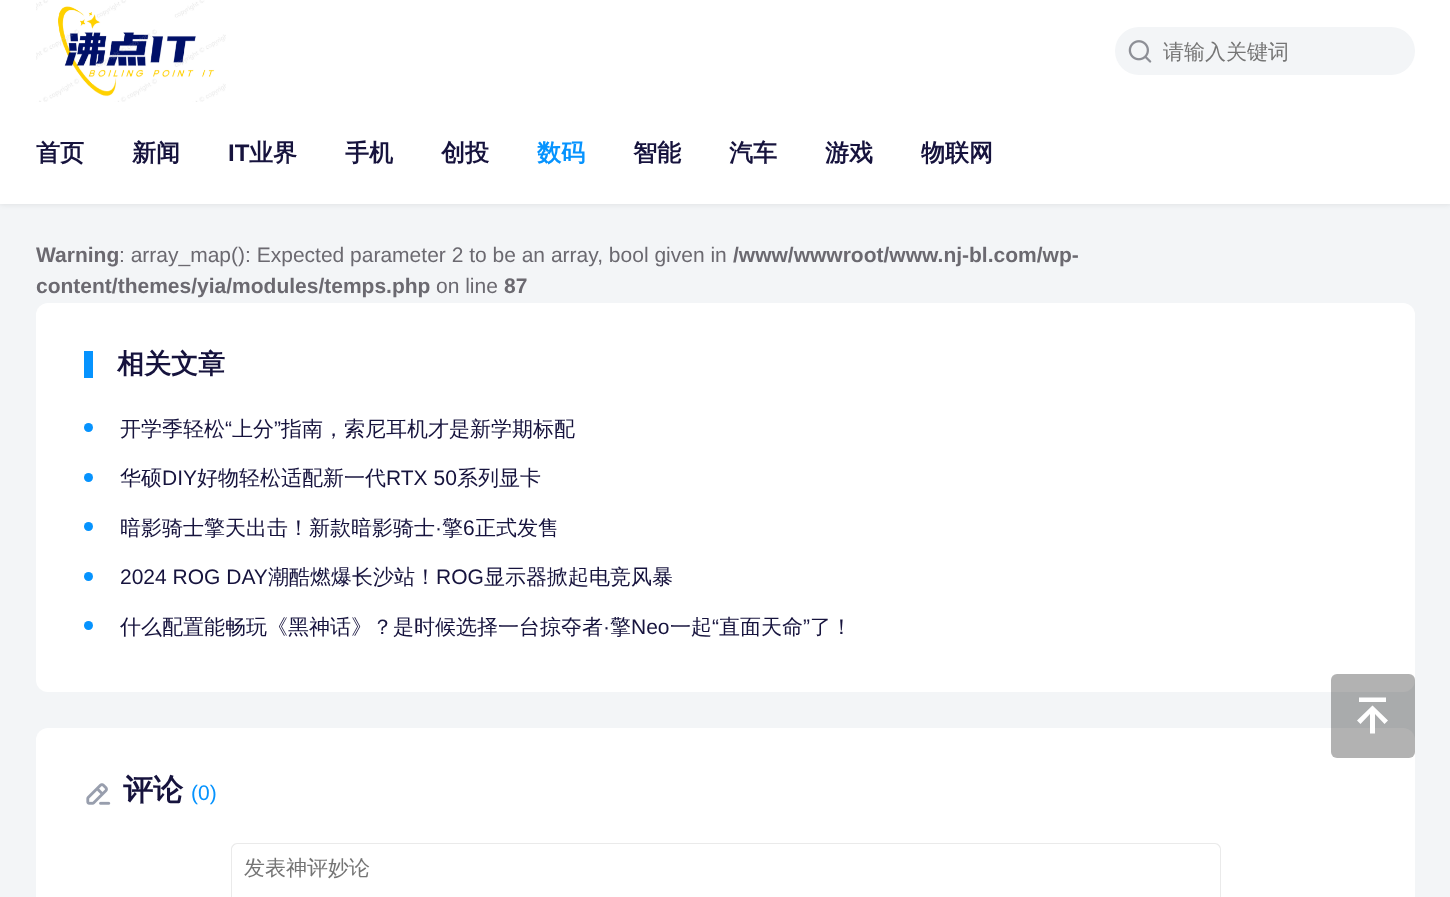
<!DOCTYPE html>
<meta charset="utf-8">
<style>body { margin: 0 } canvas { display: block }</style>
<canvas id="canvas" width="1450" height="897"></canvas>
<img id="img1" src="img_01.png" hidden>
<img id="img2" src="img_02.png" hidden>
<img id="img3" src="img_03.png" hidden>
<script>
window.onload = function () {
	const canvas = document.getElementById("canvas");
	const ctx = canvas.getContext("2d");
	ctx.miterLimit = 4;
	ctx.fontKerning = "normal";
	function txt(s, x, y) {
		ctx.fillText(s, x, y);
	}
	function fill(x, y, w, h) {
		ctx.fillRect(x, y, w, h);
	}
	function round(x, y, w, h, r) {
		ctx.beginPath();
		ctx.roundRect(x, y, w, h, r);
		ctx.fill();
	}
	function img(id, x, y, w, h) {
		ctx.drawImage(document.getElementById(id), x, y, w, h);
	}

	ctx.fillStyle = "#F3F5F7";
	fill(0, 0, 1450, 897);
	ctx.fillStyle = "rgba(0, 0, 0, 0.1)";
	ctx.filter = "blur(3px)";
	ctx.beginPath();
	ctx.rect(0, 0, 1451, 204);
	ctx.fill();
	ctx.filter = "none";
	ctx.fillStyle = "#FFFFFF";
	fill(0, 0, 1450, 204);
	img("img1", 36, 0, 190, 102);
	ctx.fillStyle = "#F3F5F7";
	round(1115, 27, 300, 48, 24);
	img("img2", 1128, 40, 24, 23);
	ctx.fillStyle = "#FFFFFF";
	round(36, 303, 1379, 389, 12);
	ctx.fillStyle = "#0693FE";
	fill(84, 351, 9, 27);
	ctx.beginPath();
	ctx.arc(88.5, 427.5, 4.5, 0, Math.PI * 2);
	ctx.fill();
	ctx.beginPath();
	ctx.arc(88.5, 477.5, 4.5, 0, Math.PI * 2);
	ctx.fill();
	ctx.beginPath();
	ctx.arc(88.5, 526.5, 4.5, 0, Math.PI * 2);
	ctx.fill();
	ctx.beginPath();
	ctx.arc(88.5, 576.5, 4.5, 0, Math.PI * 2);
	ctx.fill();
	ctx.beginPath();
	ctx.arc(88.5, 625.5, 4.5, 0, Math.PI * 2);
	ctx.fill();
	ctx.fillStyle = "#FFFFFF";
	round(36, 728, 1379, 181, 12);
	img("img3", 86, 783, 25, 22);
	ctx.fillStyle = "#EAEAEA";
	ctx.beginPath();
	ctx.moveTo(237, 843);
	ctx.lineTo(1215, 843);
	ctx.bezierCurveTo(1218, 843, 1221, 846, 1221, 849);
	ctx.lineTo(1221, 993);
	ctx.lineTo(231, 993);
	ctx.lineTo(231, 849);
	ctx.bezierCurveTo(231, 846, 234, 843, 237, 843);
	ctx.closePath();
	ctx.moveTo(237, 844);
	ctx.lineTo(1215, 844);
	ctx.bezierCurveTo(1217, 844, 1220, 847, 1220, 849);
	ctx.lineTo(1220, 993);
	ctx.lineTo(232, 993);
	ctx.lineTo(232, 849);
	ctx.bezierCurveTo(232, 847, 235, 844, 237, 844);
	ctx.closePath();
	ctx.fill("evenodd");
	ctx.fillStyle = "rgba(0, 0, 0, 0.3)";
	round(1331, 674, 84, 84, 6);
	ctx.fillStyle = "#FFFFFF";
	ctx.beginPath();
	ctx.moveTo(1359, 697.5);
	ctx.lineTo(1386, 697.5);
	ctx.lineTo(1386, 702);
	ctx.lineTo(1359, 702);
	ctx.closePath();
	ctx.moveTo(1360.5, 724);
	ctx.lineTo(1370, 714);
	ctx.lineTo(1370, 733.5);
	ctx.lineTo(1375, 733.5);
	ctx.lineTo(1375, 714);
	ctx.lineTo(1384.5, 724);
	ctx.lineTo(1388, 720.5);
	ctx.lineTo(1372.5, 705.5);
	ctx.lineTo(1357, 720.5);
	ctx.closePath();
	ctx.fill();
	ctx.font = "500 21px WenQuanYi Zen Hei";
	ctx.fillStyle = "#757575";
	txt("请输入关键词", 1163, 59);
	ctx.font = "bold 24px WenQuanYi Zen Hei";
	ctx.fillStyle = "#16133D";
	txt("首页", 36, 161);
	txt("新闻", 132, 161);
	ctx.font = "bold 24px Liberation Sans";
	txt("IT", 228, 161);
	ctx.font = "bold 24px WenQuanYi Zen Hei";
	txt("业界", 249, 161);
	txt("手机", 345, 161);
	txt("创投", 441, 161);
	ctx.fillStyle = "#0693FE";
	txt("数码", 537, 161);
	ctx.fillStyle = "#16133D";
	txt("智能", 633, 161);
	txt("汽车", 729, 161);
	txt("游戏", 825, 161);
	txt("物联网", 921, 161);
	ctx.font = "bold 21px Liberation Sans";
	ctx.fillStyle = "#6B6970";
	txt("Warning", 36, 262);
	ctx.font = "21px Liberation Sans";
	txt(": array_map(): Expected parameter 2 to be an array, bool given in", 119, 262);
	ctx.font = "bold 21px Liberation Sans";
	txt("/www/wwwroot/www.nj-bl.com/wp-", 733, 262);
	txt("content/themes/yia/modules/temps.php", 36, 293);
	ctx.font = "21px Liberation Sans";
	txt("on line", 436, 293);
	ctx.font = "bold 21px Liberation Sans";
	txt("87", 504, 293);
	ctx.font = "bold 27px WenQuanYi Zen Hei";
	ctx.fillStyle = "#16133D";
	txt("相关文章", 117, 373);
	ctx.font = "500 21px WenQuanYi Zen Hei";
	txt("开学季轻松", 120, 436);
	ctx.font = "21px Liberation Sans";
	txt("“", 225, 436);
	ctx.font = "500 21px WenQuanYi Zen Hei";
	txt("上分", 232, 436);
	ctx.font = "21px Liberation Sans";
	txt("”", 274, 436);
	ctx.font = "500 21px WenQuanYi Zen Hei";
	txt("指南，索尼耳机才是新学期标配", 281, 436);
	txt("华硕", 120, 485);
	ctx.font = "21px Liberation Sans";
	txt("DIY", 162, 485);
	ctx.font = "500 21px WenQuanYi Zen Hei";
	txt("好物轻松适配新一代", 197, 485);
	ctx.font = "21px Liberation Sans";
	txt("RTX 50", 386, 485);
	ctx.font = "500 21px WenQuanYi Zen Hei";
	txt("系列显卡", 457, 485);
	txt("暗影骑士擎天出击！新款暗影骑士", 120, 535);
	ctx.font = "21px Liberation Sans";
	txt("·", 435, 535);
	ctx.font = "500 21px WenQuanYi Zen Hei";
	txt("擎", 442, 535);
	ctx.font = "21px Liberation Sans";
	txt("6", 463, 535);
	ctx.font = "500 21px WenQuanYi Zen Hei";
	txt("正式发售", 475, 535);
	ctx.font = "21px Liberation Sans";
	txt("2024 ROG DAY", 120, 584);
	ctx.font = "500 21px WenQuanYi Zen Hei";
	txt("潮酷燃爆长沙站！", 268, 584);
	ctx.font = "21px Liberation Sans";
	txt("ROG", 436, 584);
	ctx.font = "500 21px WenQuanYi Zen Hei";
	txt("显示器掀起电竞风暴", 484, 584);
	txt("什么配置能畅玩《黑神话》？是时候选择一台掠夺者", 120, 634);
	txt("擎", 610, 634);
	ctx.font = "21px Liberation Sans";
	txt("Neo", 631, 634);
	ctx.font = "500 21px WenQuanYi Zen Hei";
	txt("一起", 670, 634);
	ctx.font = "21px Liberation Sans";
	txt("“", 712, 634);
	ctx.font = "500 21px WenQuanYi Zen Hei";
	txt("直面天命", 719, 634);
	ctx.font = "21px Liberation Sans";
	txt("”", 803, 634);
	ctx.font = "500 21px WenQuanYi Zen Hei";
	txt("了！", 810, 634);
	ctx.font = "21px Liberation Sans";
	txt("·", 603, 634);
	ctx.font = "bold 30px WenQuanYi Zen Hei";
	txt("评论", 123, 800);
	ctx.font = "21px Liberation Sans";
	ctx.fillStyle = "#0693FE";
	txt("(0)", 191, 800);
	ctx.font = "500 21px WenQuanYi Zen Hei";
	ctx.fillStyle = "#757575";
	txt("发表神评妙论", 244, 875);
};
</script>
